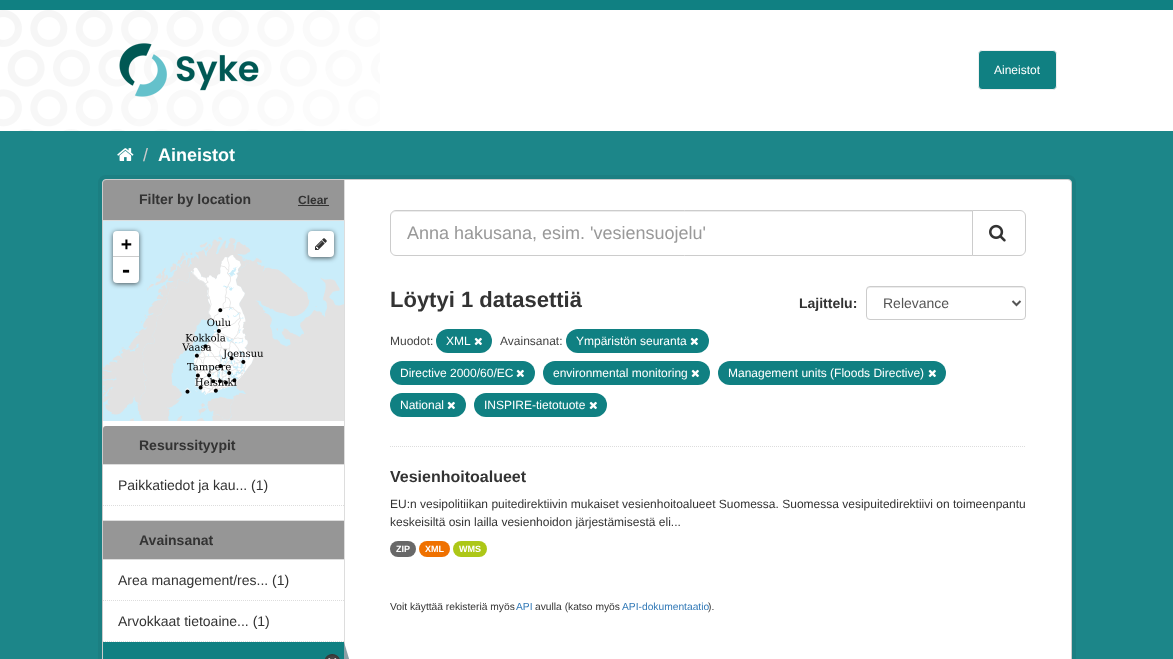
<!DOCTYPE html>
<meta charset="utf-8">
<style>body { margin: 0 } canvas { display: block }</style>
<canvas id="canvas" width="1173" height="659"></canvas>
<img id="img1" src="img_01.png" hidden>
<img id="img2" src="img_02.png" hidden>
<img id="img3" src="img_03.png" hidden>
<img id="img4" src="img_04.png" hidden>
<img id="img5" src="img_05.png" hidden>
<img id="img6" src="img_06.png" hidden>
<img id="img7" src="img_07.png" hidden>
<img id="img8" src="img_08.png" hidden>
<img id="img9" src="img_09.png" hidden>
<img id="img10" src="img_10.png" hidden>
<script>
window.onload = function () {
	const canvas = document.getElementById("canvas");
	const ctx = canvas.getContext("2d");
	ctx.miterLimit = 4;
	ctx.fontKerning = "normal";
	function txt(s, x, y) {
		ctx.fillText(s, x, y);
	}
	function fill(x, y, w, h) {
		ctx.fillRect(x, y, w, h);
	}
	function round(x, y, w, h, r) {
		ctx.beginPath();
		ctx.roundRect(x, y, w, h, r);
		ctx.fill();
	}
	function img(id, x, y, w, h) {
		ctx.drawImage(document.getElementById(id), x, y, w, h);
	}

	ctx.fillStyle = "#108082";
	fill(0, 0, 1173, 659);
	ctx.fillStyle = "#FFFFFF";
	fill(380, 10, 793, 121);
	img("img1", 0, 10, 380, 121);
	img("img2", 119, 43, 140, 54);
	ctx.fillStyle = "#108082";
	ctx.beginPath();
	ctx.roundRect(978.5, 50.5, 78, 39, 3.5);
	ctx.fill();
	ctx.strokeStyle = "#F0F0F0";
	ctx.stroke();
	ctx.fillStyle = "#1C8689";
	fill(0, 131, 1173, 528);
	img("img3", 117, 148, 17, 13);
	ctx.beginPath();
	ctx.roundRect(100, 177, 974, 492, 6);
	ctx.strokeStyle = "#1B7F82";
	ctx.lineWidth = 4;
	ctx.stroke();
	ctx.fillStyle = "#FFFFFF";
	ctx.beginPath();
	ctx.roundRect(102.5, 179.5, 969, 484, 3.5);
	ctx.fill();
	ctx.strokeStyle = "#CCCCCC";
	ctx.lineWidth = 1;
	ctx.stroke();
	ctx.fillStyle = "#969696";
	ctx.beginPath();
	ctx.roundRect(103, 180, 241, 41, [3, 0, 0, 0]);
	ctx.fill();
	ctx.fillStyle = "#DDDDDD";
	fill(103, 220, 241, 1);
	ctx.fillStyle = "#333333";
	fill(298, 205, 31, 1);
	img("img4", 103, 221, 227, 89);
	img("img5", 330, 221, 14, 89);
	img("img6", 103, 310, 227, 111);
	ctx.fillStyle = "#E2E2E2";
	fill(330, 310, 14, 111);
	ctx.fillStyle = "rgba(0, 0, 0, 0.65)";
	ctx.filter = "blur(2.5px)";
	ctx.beginPath();
	ctx.roundRect(113, 232, 26, 52, 4);
	ctx.fill();
	ctx.filter = "none";
	ctx.fillStyle = "#FFFFFF";
	ctx.beginPath();
	ctx.roundRect(113, 231, 26, 26, [4, 4, 0, 0]);
	ctx.fill();
	ctx.fillStyle = "#CCCCCC";
	fill(113, 256, 26, 1);
	ctx.fillStyle = "#FFFFFF";
	ctx.beginPath();
	ctx.roundRect(113, 257, 26, 26, [0, 0, 4, 4]);
	ctx.fill();
	ctx.fillStyle = "rgba(0, 0, 0, 0.65)";
	ctx.filter = "blur(2.5px)";
	ctx.beginPath();
	ctx.roundRect(308, 232, 26, 26, 4);
	ctx.fill();
	ctx.filter = "none";
	ctx.fillStyle = "#FFFFFF";
	round(308, 231, 26, 26, 4);
	img("img7", 315, 238, 12, 12);
	ctx.fillStyle = "#969696";
	ctx.beginPath();
	ctx.roundRect(103, 426, 241, 39, [3, 0, 0, 0]);
	ctx.fill();
	ctx.fillStyle = "#DDDDDD";
	fill(103, 464, 241, 1);
	ctx.beginPath();
	ctx.moveTo(103, 505.5);
	ctx.lineTo(344, 505.5);
	ctx.strokeStyle = "#DDDDDD";
	ctx.setLineDash([1, 1]);
	ctx.stroke();
	ctx.fillStyle = "#969696";
	fill(103, 521, 241, 38);
	ctx.fillStyle = "#DDDDDD";
	fill(103, 520, 241, 1);
	fill(103, 559, 241, 1);
	ctx.beginPath();
	ctx.moveTo(103, 600.5);
	ctx.lineTo(344, 600.5);
	ctx.stroke();
	ctx.beginPath();
	ctx.moveTo(103, 641.5);
	ctx.lineTo(344, 641.5);
	ctx.stroke();
	ctx.fillStyle = "#108082";
	fill(103, 642, 241, 17);
	img("img8", 324, 654, 16, 5);
	ctx.fillStyle = "#DDDDDD";
	fill(344, 180, 1, 466);
	ctx.fillStyle = "#8CA0A6";
	ctx.beginPath();
	ctx.moveTo(344, 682);
	ctx.lineTo(344, 642);
	ctx.lineTo(350, 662);
	ctx.closePath();
	ctx.fill();
	ctx.beginPath();
	ctx.moveTo(390, 446.5);
	ctx.lineTo(1026, 446.5);
	ctx.stroke();
	ctx.fillStyle = "#ECECEC";
	ctx.beginPath();
	ctx.moveTo(396, 212);
	ctx.lineTo(972, 212);
	ctx.lineTo(972, 211);
	ctx.lineTo(396, 211);
	ctx.bezierCurveTo(393, 211, 391, 214, 391, 217);
	ctx.bezierCurveTo(391, 214, 393, 212, 396, 212);
	ctx.closePath();
	ctx.fill();
	ctx.beginPath();
	ctx.roundRect(390.5, 210.5, 582, 45, [5.5, 0, 0, 5.5]);
	ctx.strokeStyle = "#CCCCCC";
	ctx.setLineDash([]);
	ctx.stroke();
	ctx.fillStyle = "#FFFFFF";
	ctx.beginPath();
	ctx.roundRect(972.5, 210.5, 53, 45, [0, 5.5, 5.5, 0]);
	ctx.fill();
	ctx.stroke();
	img("img9", 989, 224, 17, 18);
	ctx.fillStyle = "#ECECEC";
	ctx.beginPath();
	ctx.moveTo(870, 288);
	ctx.lineTo(1022, 288);
	ctx.bezierCurveTo(1024, 288, 1025, 289, 1025, 291);
	ctx.bezierCurveTo(1025, 289, 1024, 287, 1022, 287);
	ctx.lineTo(869, 287);
	ctx.bezierCurveTo(867, 287, 867, 289, 867, 291);
	ctx.bezierCurveTo(867, 289, 868, 288, 870, 288);
	ctx.closePath();
	ctx.fill();
	ctx.beginPath();
	ctx.roundRect(866.5, 286.5, 159, 33, 3.5);
	ctx.stroke();
	ctx.beginPath();
	ctx.moveTo(1012.5, 301);
	ctx.lineTo(1016.5, 305);
	ctx.lineTo(1020.5, 301);
	ctx.strokeStyle = "#555555";
	ctx.lineWidth = 2;
	ctx.stroke();
	ctx.fillStyle = "#108082";
	round(436, 329, 56, 24, 12);
	img("img10", 474, 337, 8, 9);
	round(566, 329, 143, 24, 12);
	img("img10", 690, 337, 8, 9);
	round(390, 361, 145, 24, 12);
	img("img10", 516, 369, 8, 9);
	round(543, 361, 167, 24, 12);
	img("img10", 691, 369, 8, 9);
	round(718, 361, 228, 24, 12);
	img("img10", 928, 369, 8, 9);
	round(390, 393, 76, 24, 12);
	img("img10", 447, 401, 8, 9);
	round(474, 393, 133, 24, 12);
	img("img10", 589, 401, 8, 9);
	ctx.fillStyle = "#686868";
	round(390, 541, 26, 16, 8);
	ctx.fillStyle = "#EF7100";
	round(419, 541, 31, 16, 8);
	ctx.fillStyle = "#ADC717";
	round(453, 541, 34, 16, 8);
	ctx.font = "12px Liberation Sans";
	ctx.fillStyle = "#FFFFFF";
	txt("Aineistot", 994, 74);
	ctx.font = "18px Liberation Sans";
	ctx.fillStyle = "#CCCCCC";
	txt("/", 143, 161);
	ctx.font = "bold 18px Liberation Sans";
	ctx.fillStyle = "#FFFFFF";
	txt("Aineistot", 158, 161);
	ctx.font = "bold 14px Liberation Sans";
	ctx.fillStyle = "#333333";
	txt("Filter by location", 139, 204);
	ctx.font = "bold 12px Liberation Sans";
	txt("Clear", 298, 204);
	ctx.font = "bold 18px DejaVu Sans Mono";
	ctx.fillStyle = "#000000";
	txt("+", 121, 250);
	ctx.font = "bold 20px DejaVu Sans Mono";
	txt("-", 120, 277);
	ctx.font = "bold 14px Liberation Sans";
	ctx.fillStyle = "#333333";
	txt("Resurssityypit", 139, 450);
	ctx.font = "14px Liberation Sans";
	txt("Paikkatiedot ja kau... (1)", 118, 490);
	ctx.font = "bold 14px Liberation Sans";
	txt("Avainsanat", 139, 545);
	ctx.font = "14px Liberation Sans";
	txt("Area management/res... (1)", 118, 585);
	txt("Arvokkaat tietoaine... (1)", 118, 626);
	ctx.font = "18px Liberation Sans";
	ctx.fillStyle = "#999999";
	txt("Anna hakusana, esim. 'vesiensuojelu'", 407, 239);
	ctx.font = "bold 22px Liberation Sans";
	ctx.fillStyle = "#333333";
	txt("Löytyi 1 datasettiä", 390, 307);
	ctx.font = "bold 14px Liberation Sans";
	txt("Lajittelu:", 799, 308);
	ctx.font = "14px Liberation Sans";
	ctx.fillStyle = "#555555";
	txt("Relevance", 883, 308);
	ctx.font = "12px Liberation Sans";
	ctx.fillStyle = "#444444";
	txt("Muodot:", 390, 345);
	ctx.fillStyle = "#FFFFFF";
	txt("XML", 446, 345);
	ctx.fillStyle = "#444444";
	txt("Avainsanat:", 500, 345);
	ctx.fillStyle = "#FFFFFF";
	txt("Ympäristön seuranta", 576, 345);
	txt("Directive 2000/60/EC", 400, 377);
	txt("environmental monitoring", 553, 377);
	txt("Management units (Floods Directive)", 728, 377);
	txt("National", 400, 409);
	txt("INSPIRE-tietotuote", 484, 409);
	ctx.font = "bold 16px Liberation Sans";
	ctx.fillStyle = "#333333";
	txt("Vesienhoitoalueet", 390, 482);
	ctx.font = "12px Liberation Sans";
	txt("EU:n vesipolitiikan puitedirektiivin mukaiset vesienhoitoalueet Suomessa. Suomessa vesipuitedirektiivi on toimeenpantu", 390, 508);
	txt("keskeisiltä osin lailla vesienhoidon järjestämisestä eli...", 390, 526);
	ctx.font = "bold 9px Liberation Sans";
	ctx.fillStyle = "#FFFFFF";
	txt("ZIP", 396, 552);
	txt("XML", 425, 552);
	txt("WMS", 459, 552);
	ctx.font = "10.25px Liberation Sans";
	ctx.fillStyle = "#333333";
	txt("Voit käyttää rekisteriä myös", 390, 610);
	ctx.fillStyle = "#337AB7";
	txt("API", 516, 610);
	ctx.fillStyle = "#333333";
	txt("avulla (katso myös", 535, 610);
	ctx.fillStyle = "#337AB7";
	txt("API-dokumentaatio", 622, 610);
	ctx.fillStyle = "#333333";
	txt(").", 708, 610);
};
</script>
